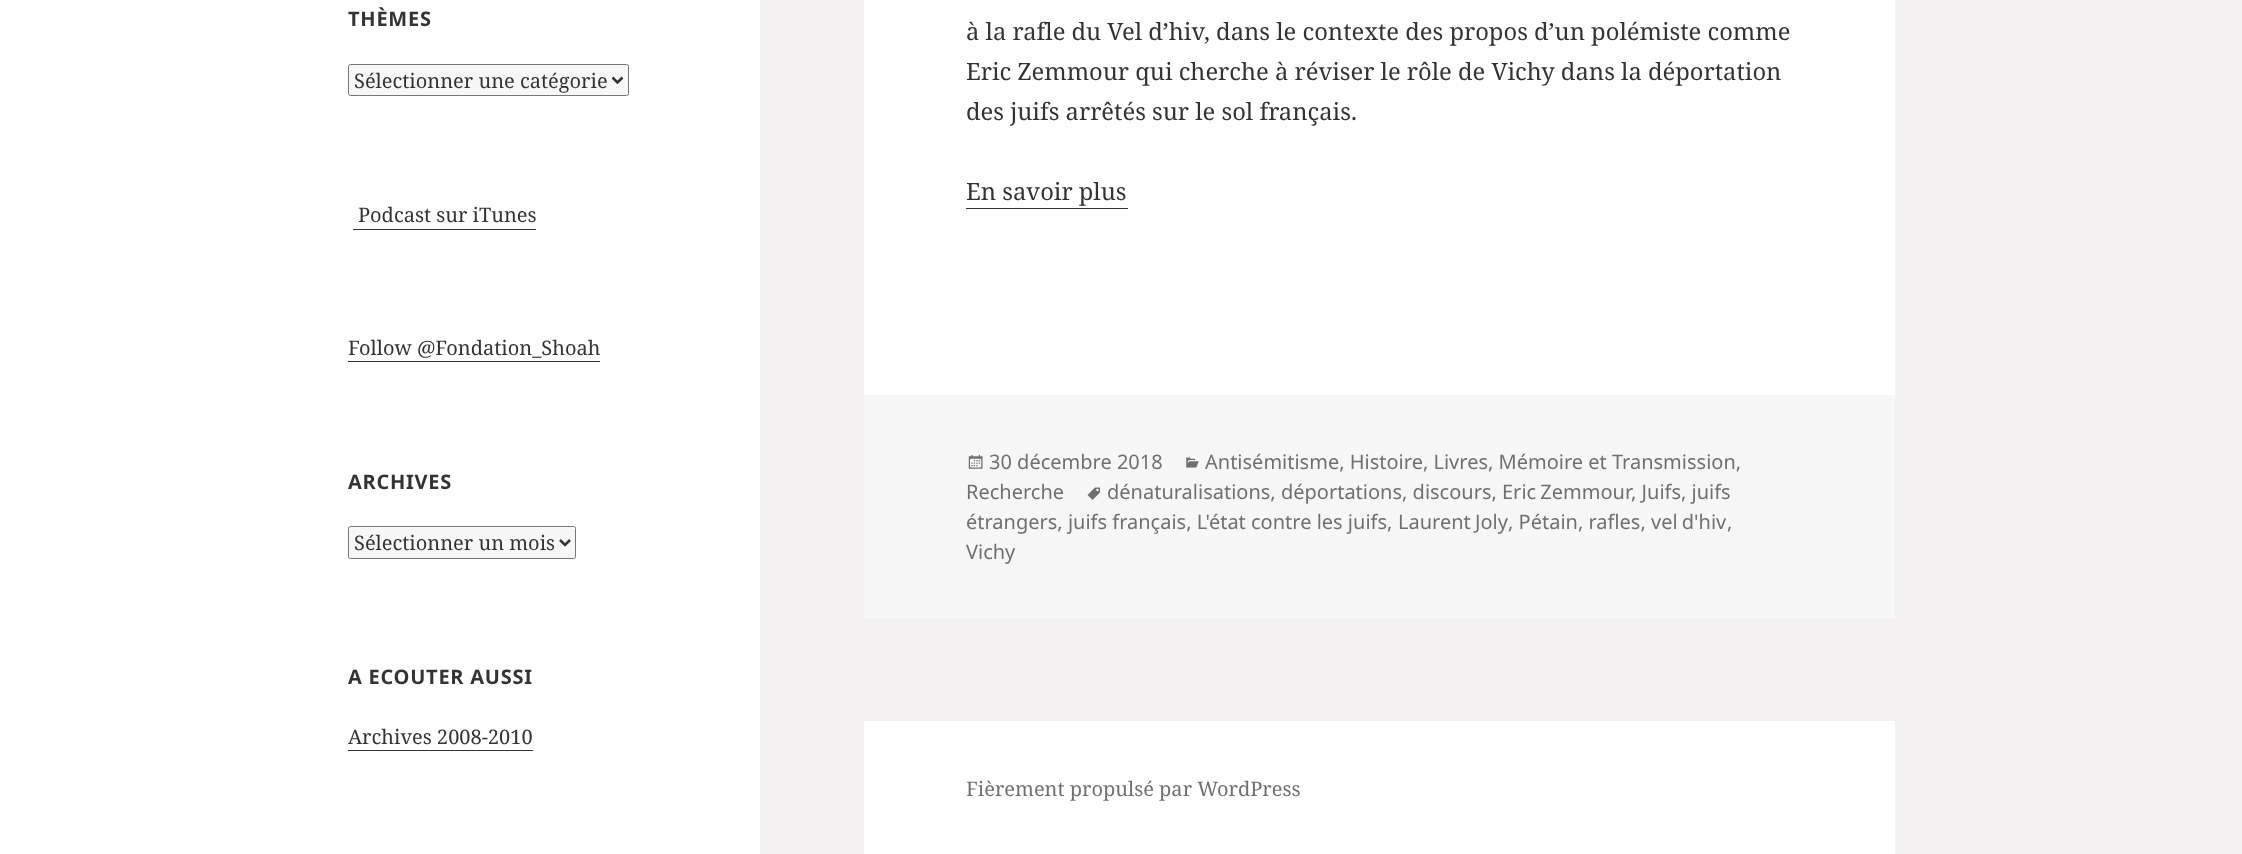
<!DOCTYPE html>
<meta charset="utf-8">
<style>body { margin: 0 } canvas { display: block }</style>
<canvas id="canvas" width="2242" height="854"></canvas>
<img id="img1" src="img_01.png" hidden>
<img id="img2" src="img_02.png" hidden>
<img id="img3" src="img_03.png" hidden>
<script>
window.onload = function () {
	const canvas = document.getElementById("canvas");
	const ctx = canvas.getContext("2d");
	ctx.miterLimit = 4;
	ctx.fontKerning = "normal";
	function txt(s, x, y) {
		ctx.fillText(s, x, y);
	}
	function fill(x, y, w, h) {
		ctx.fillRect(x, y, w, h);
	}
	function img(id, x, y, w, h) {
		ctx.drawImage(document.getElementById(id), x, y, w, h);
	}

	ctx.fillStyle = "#F3F1F1";
	fill(0, 0, 2242, 854);
	ctx.fillStyle = "#FFFFFF";
	fill(0, 0, 760, 854);
	ctx.fillStyle = "#F7F7F7";
	ctx.beginPath();
	ctx.roundRect(348.5, 64.5, 280, 31, 2);
	ctx.fill();
	ctx.strokeStyle = "#767676";
	ctx.stroke();
	ctx.beginPath();
	ctx.moveTo(612.5, 77.5);
	ctx.lineTo(617.5, 82.5);
	ctx.lineTo(622.5, 77.5);
	ctx.strokeStyle = "#333333";
	ctx.lineWidth = 2.5;
	ctx.stroke();
	ctx.fillStyle = "#333333";
	fill(353, 229, 183, 1);
	fill(348, 361, 252, 1);
	ctx.fillStyle = "#F7F7F7";
	ctx.beginPath();
	ctx.roundRect(348.5, 526.5, 227, 32, 2);
	ctx.fill();
	ctx.strokeStyle = "#767676";
	ctx.lineWidth = 1;
	ctx.stroke();
	ctx.beginPath();
	ctx.moveTo(560, 540);
	ctx.lineTo(565, 545);
	ctx.lineTo(570, 540);
	ctx.strokeStyle = "#333333";
	ctx.lineWidth = 2.5;
	ctx.stroke();
	ctx.fillStyle = "#333333";
	fill(348, 750, 185, 1);
	ctx.fillStyle = "#FFFFFF";
	fill(864, 0, 1031, 395);
	ctx.fillStyle = "#333333";
	fill(966, 208, 162, 1);
	ctx.fillStyle = "#F7F7F7";
	fill(864, 395, 1031, 224);
	img("img1", 1186, 457, 13, 11);
	img("img2", 968, 455, 15, 14);
	img("img3", 1087, 487, 13, 13);
	ctx.fillStyle = "#FFFFFF";
	fill(864, 721, 1031, 133);
	ctx.letterSpacing = "0.75px";
	ctx.font = "bold 20px Noto Sans";
	ctx.fillStyle = "#333333";
	txt("THÈMES", 348, 26);
	ctx.letterSpacing = "0px";
	ctx.font = "20px Noto Serif";
	txt("Sélectionner une catégorie", 354, 88);
	txt("Podcast sur iTunes", 358, 222);
	txt("Follow @Fondation_Shoah", 348, 355);
	ctx.letterSpacing = "0.75px";
	ctx.font = "bold 20px Noto Sans";
	txt("ARCHIVES", 348, 489);
	ctx.letterSpacing = "0px";
	ctx.font = "20px Noto Serif";
	txt("Sélectionner un mois", 354, 550);
	ctx.letterSpacing = "0.75px";
	ctx.font = "bold 20px Noto Sans";
	txt("A ECOUTER AUSSI", 348, 684);
	ctx.letterSpacing = "0px";
	ctx.font = "20px Noto Serif";
	txt("Archives 2008-2010", 348, 744);
	ctx.font = "23.75px Noto Serif";
	txt("à la rafle du Vel d’hiv, dans le contexte des propos d’un polémiste comme", 966, 40);
	txt("Eric Zemmour qui cherche à réviser le rôle de Vichy dans la déportation", 966, 80);
	txt("des juifs arrêtés sur le sol français.", 966, 120);
	txt("En savoir plus", 966, 200);
	ctx.font = "20px Noto Sans";
	ctx.fillStyle = "#707070";
	txt("Antisémitisme, Histoire, Livres, Mémoire et Transmission,", 1205, 469);
	txt("Recherche", 966, 499);
	txt("30 décembre 2018", 989, 469);
	txt("dénaturalisations, déportations, discours,", 1107, 499);
	ctx.wordSpacing = "-1px";
	txt("Eric Zemmour", 1502, 499);
	ctx.wordSpacing = "0px";
	txt(", Juifs, juifs", 1631, 499);
	txt("étrangers, juifs français, L'état contre les juifs,", 966, 529);
	ctx.wordSpacing = "-1px";
	txt("Laurent Joly", 1398, 529);
	ctx.wordSpacing = "0px";
	txt(", Pétain, rafles,", 1508, 529);
	ctx.wordSpacing = "-1px";
	txt("vel d'hiv", 1651, 529);
	ctx.wordSpacing = "0px";
	txt(",", 1727, 529);
	txt("Vichy", 966, 559);
	ctx.font = "20px Noto Serif";
	txt("Fièrement propulsé par WordPress", 966, 796);
};
</script>
